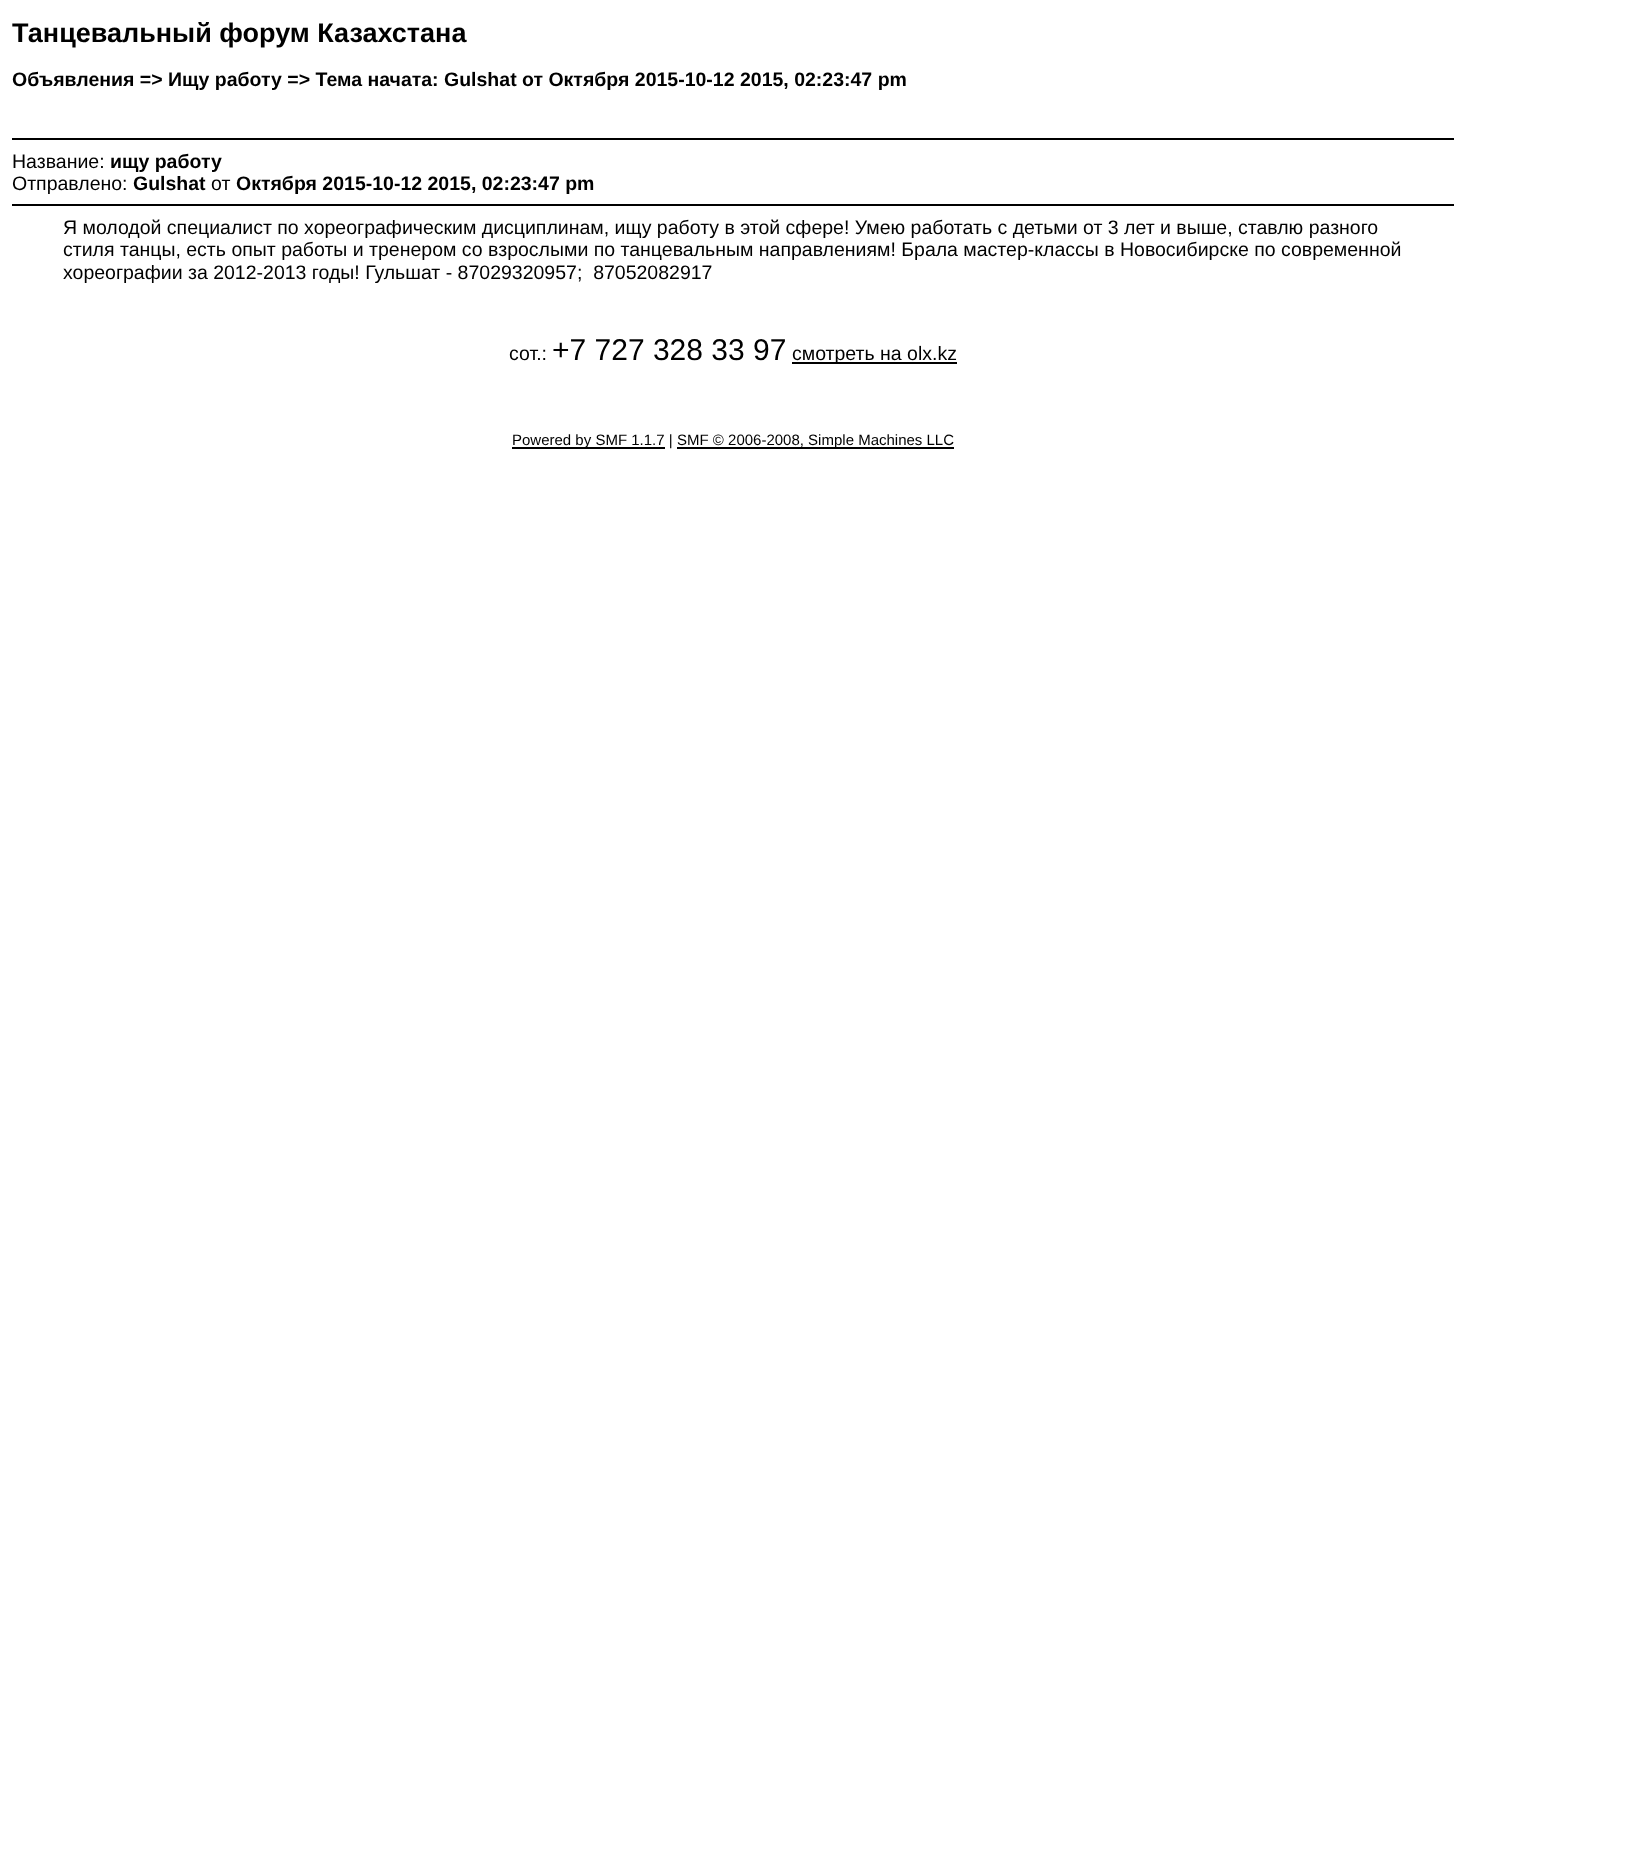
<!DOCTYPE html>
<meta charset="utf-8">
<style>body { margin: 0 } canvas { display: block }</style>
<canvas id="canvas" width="1625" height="1864"></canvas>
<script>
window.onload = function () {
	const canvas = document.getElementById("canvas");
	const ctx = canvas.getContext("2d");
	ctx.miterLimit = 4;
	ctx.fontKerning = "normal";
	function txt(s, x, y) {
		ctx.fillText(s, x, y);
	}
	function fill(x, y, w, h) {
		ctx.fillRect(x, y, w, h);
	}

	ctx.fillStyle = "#FFFFFF";
	fill(0, 0, 1625, 1864);
	ctx.fillStyle = "#000000";
	fill(12, 138, 1442, 2);
	fill(12, 204, 1442, 2);
	fill(792, 362, 165, 2);
	fill(512, 447, 153, 2);
	fill(677, 447, 277, 2);
	ctx.font = "bold 27px Liberation Sans";
	txt("Танцевальный форум Казахстана", 12, 42);
	ctx.font = "bold 19.5px Liberation Sans";
	txt("Объявления => Ищу работу => Тема начата: Gulshat от Октября 2015-10-12 2015, 02:23:47 pm", 12, 86);
	ctx.font = "19.5px Liberation Sans";
	txt("Название:", 12, 168);
	ctx.font = "bold 19.5px Liberation Sans";
	txt("ищу работу", 110, 168);
	ctx.font = "19.5px Liberation Sans";
	txt("Отправлено:", 12, 190);
	ctx.font = "bold 19.5px Liberation Sans";
	txt("Gulshat", 133, 190);
	ctx.font = "19.5px Liberation Sans";
	txt("от", 211, 190);
	ctx.font = "bold 19.5px Liberation Sans";
	txt("Октября 2015-10-12 2015, 02:23:47 pm", 236, 190);
	ctx.font = "19.5px Liberation Sans";
	txt("Я молодой специалист по хореографическим дисциплинам, ищу работу в этой сфере! Умею работать с детьми от 3 лет и выше, ставлю разного", 63, 234);
	txt("стиля танцы, есть опыт работы и тренером со взрослыми по танцевальным направлениям! Брала мастер-классы в Новосибирске по современной", 63, 256);
	txt("хореографии за 2012-2013 годы! Гульшат - 87029320957;  87052082917", 63, 279);
	txt("сот.:", 509, 360);
	ctx.font = "30px Liberation Sans";
	txt("+7 727 328 33 97", 552, 360);
	ctx.font = "19.5px Liberation Sans";
	txt("смотреть на olx.kz", 792, 360);
	ctx.font = "15px Liberation Sans";
	txt("Powered by SMF 1.1.7 |", 512, 445);
	txt("SMF © 2006-2008, Simple Machines LLC", 677, 445);
};
</script>
